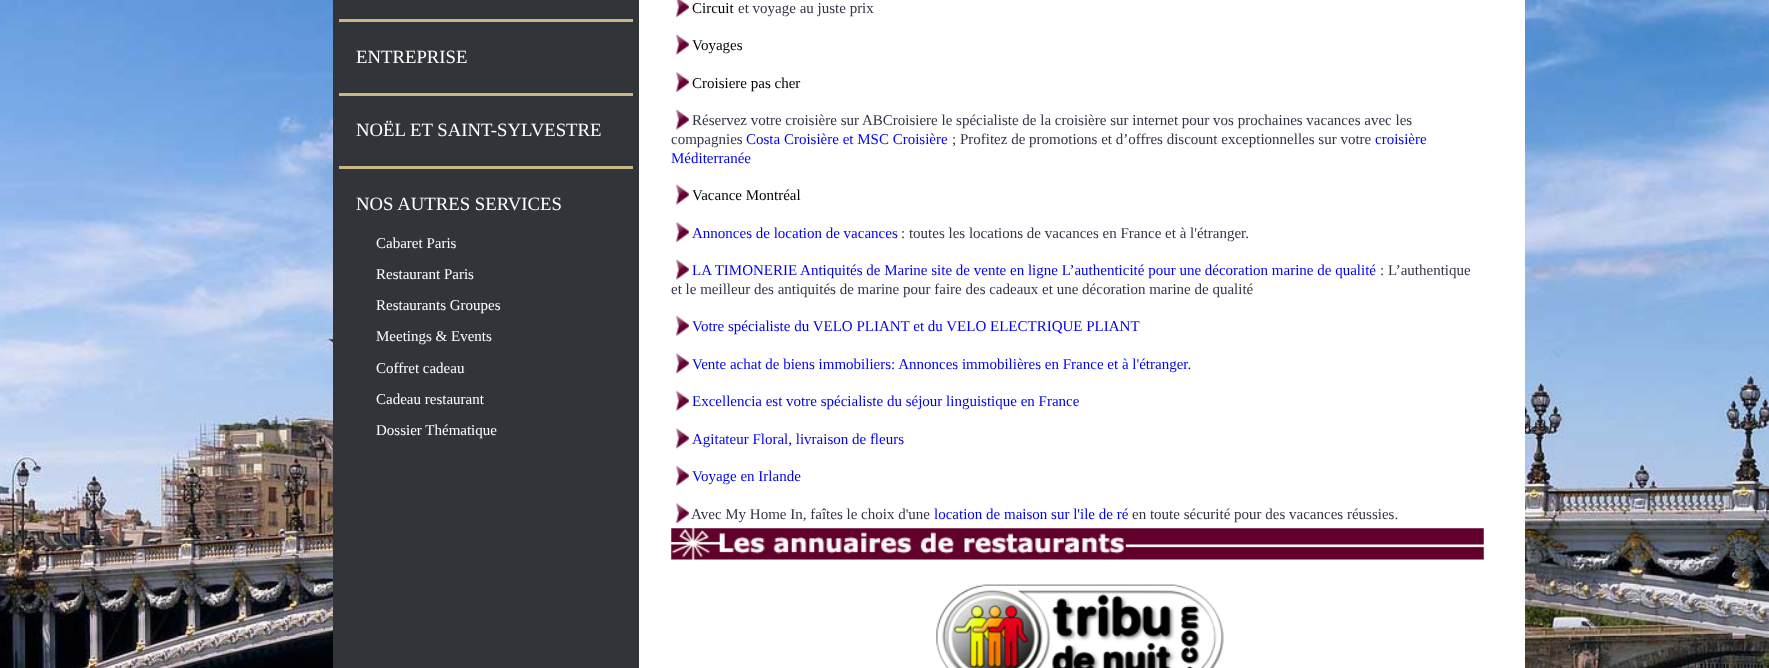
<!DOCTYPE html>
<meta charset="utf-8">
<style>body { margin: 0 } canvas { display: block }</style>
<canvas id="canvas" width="1769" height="668"></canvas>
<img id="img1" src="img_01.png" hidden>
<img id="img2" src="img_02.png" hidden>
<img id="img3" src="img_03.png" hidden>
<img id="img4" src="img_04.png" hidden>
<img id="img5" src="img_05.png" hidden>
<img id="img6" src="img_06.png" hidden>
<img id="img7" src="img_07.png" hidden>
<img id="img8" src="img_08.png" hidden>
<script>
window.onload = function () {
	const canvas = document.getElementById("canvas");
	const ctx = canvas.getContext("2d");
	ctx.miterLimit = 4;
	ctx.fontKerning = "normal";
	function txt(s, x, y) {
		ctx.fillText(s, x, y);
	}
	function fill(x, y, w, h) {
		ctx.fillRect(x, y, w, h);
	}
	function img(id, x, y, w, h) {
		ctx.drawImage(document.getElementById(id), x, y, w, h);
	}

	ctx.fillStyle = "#FFFFFF";
	fill(0, 0, 1769, 668);
	img("img1", 0, 0, 1769, 668);
	ctx.fillStyle = "#313439";
	fill(333, 0, 306, 668);
	ctx.fillStyle = "#C8B783";
	fill(339, 19, 294, 3);
	fill(339, 93, 294, 3);
	fill(339, 166, 294, 3);
	ctx.fillStyle = "#FFFFFF";
	fill(639, 0, 886, 668);
	img("img2", 676, 0, 13, 18);
	img("img3", 676, 34, 13, 21);
	img("img4", 676, 72, 13, 21);
	img("img3", 676, 109, 13, 21);
	img("img3", 676, 184, 13, 21);
	img("img4", 676, 222, 13, 21);
	img("img3", 676, 259, 13, 21);
	img("img5", 676, 315, 13, 21);
	img("img6", 676, 353, 13, 21);
	img("img5", 676, 390, 13, 21);
	img("img6", 676, 428, 13, 21);
	img("img5", 676, 465, 13, 21);
	img("img6", 676, 503, 13, 21);
	img("img7", 671, 528, 813, 32);
	img("img8", 936, 584, 288, 84);
	ctx.font = "18.75px Liberation Serif";
	txt("ENTREPRISE", 356, 63);
	txt("NOËL ET SAINT-SYLVESTRE", 356, 136);
	txt("NOS AUTRES SERVICES", 356, 210);
	ctx.font = "15px Liberation Serif";
	txt("Cabaret Paris", 376, 248);
	txt("Restaurant Paris", 376, 279);
	txt("Restaurants Groupes", 376, 310);
	txt("Meetings & Events", 376, 341);
	txt("Coffret cadeau", 376, 373);
	txt("Cadeau restaurant", 376, 404);
	txt("Dossier Thématique", 376, 435);
	ctx.fillStyle = "#000000";
	txt("Circuit", 692, 13);
	ctx.fillStyle = "#343447";
	txt("et voyage au juste prix", 738, 13);
	ctx.fillStyle = "#000000";
	txt("Voyages", 692, 50);
	txt("Croisiere pas cher", 692, 88);
	ctx.fillStyle = "#343447";
	txt("Réservez votre croisière sur ABCroisiere le spécialiste de la croisière sur internet pour vos prochaines vacances avec les", 692, 125);
	txt("compagnies", 671, 144);
	ctx.fillStyle = "#0000EE";
	txt("Costa Croisière et MSC Croisière", 746, 144);
	ctx.fillStyle = "#343447";
	txt("; Profitez de promotions et d’offres discount exceptionnelles sur votre", 952, 144);
	ctx.fillStyle = "#0000EE";
	txt("croisière", 1375, 144);
	txt("Méditerranée", 671, 163);
	ctx.fillStyle = "#000000";
	txt("Vacance Montréal", 692, 200);
	ctx.fillStyle = "#0000EE";
	txt("Annonces de location de vacances", 692, 238);
	ctx.fillStyle = "#343447";
	txt(": toutes les locations de vacances en France et à l'étranger.", 901, 238);
	ctx.fillStyle = "#0000EE";
	txt("LA TIMONERIE Antiquités de Marine site de vente en ligne L’authenticité pour une décoration marine de qualité", 692, 275);
	ctx.fillStyle = "#343447";
	txt(": L’authentique", 1380, 275);
	txt("et le meilleur des antiquités de marine pour faire des cadeaux et une décoration marine de qualité", 671, 294);
	ctx.fillStyle = "#0000EE";
	txt("Votre spécialiste du VELO PLIANT et du VELO ELECTRIQUE PLIANT", 692, 331);
	txt("Vente achat de biens immobiliers: Annonces immobilières en France et à l'étranger.", 692, 369);
	txt("Excellencia est votre spécialiste du séjour linguistique en France", 692, 406);
	txt("Agitateur Floral, livraison de fleurs", 692, 444);
	txt("Voyage en Irlande", 692, 481);
	ctx.fillStyle = "#343447";
	txt("Avec My Home In, faîtes le choix d'une", 691, 519);
	ctx.fillStyle = "#0000EE";
	txt("location de maison sur l'ile de ré", 934, 519);
	ctx.fillStyle = "#343447";
	txt("en toute sécurité pour des vacances réussies.", 1132, 519);
};
</script>
